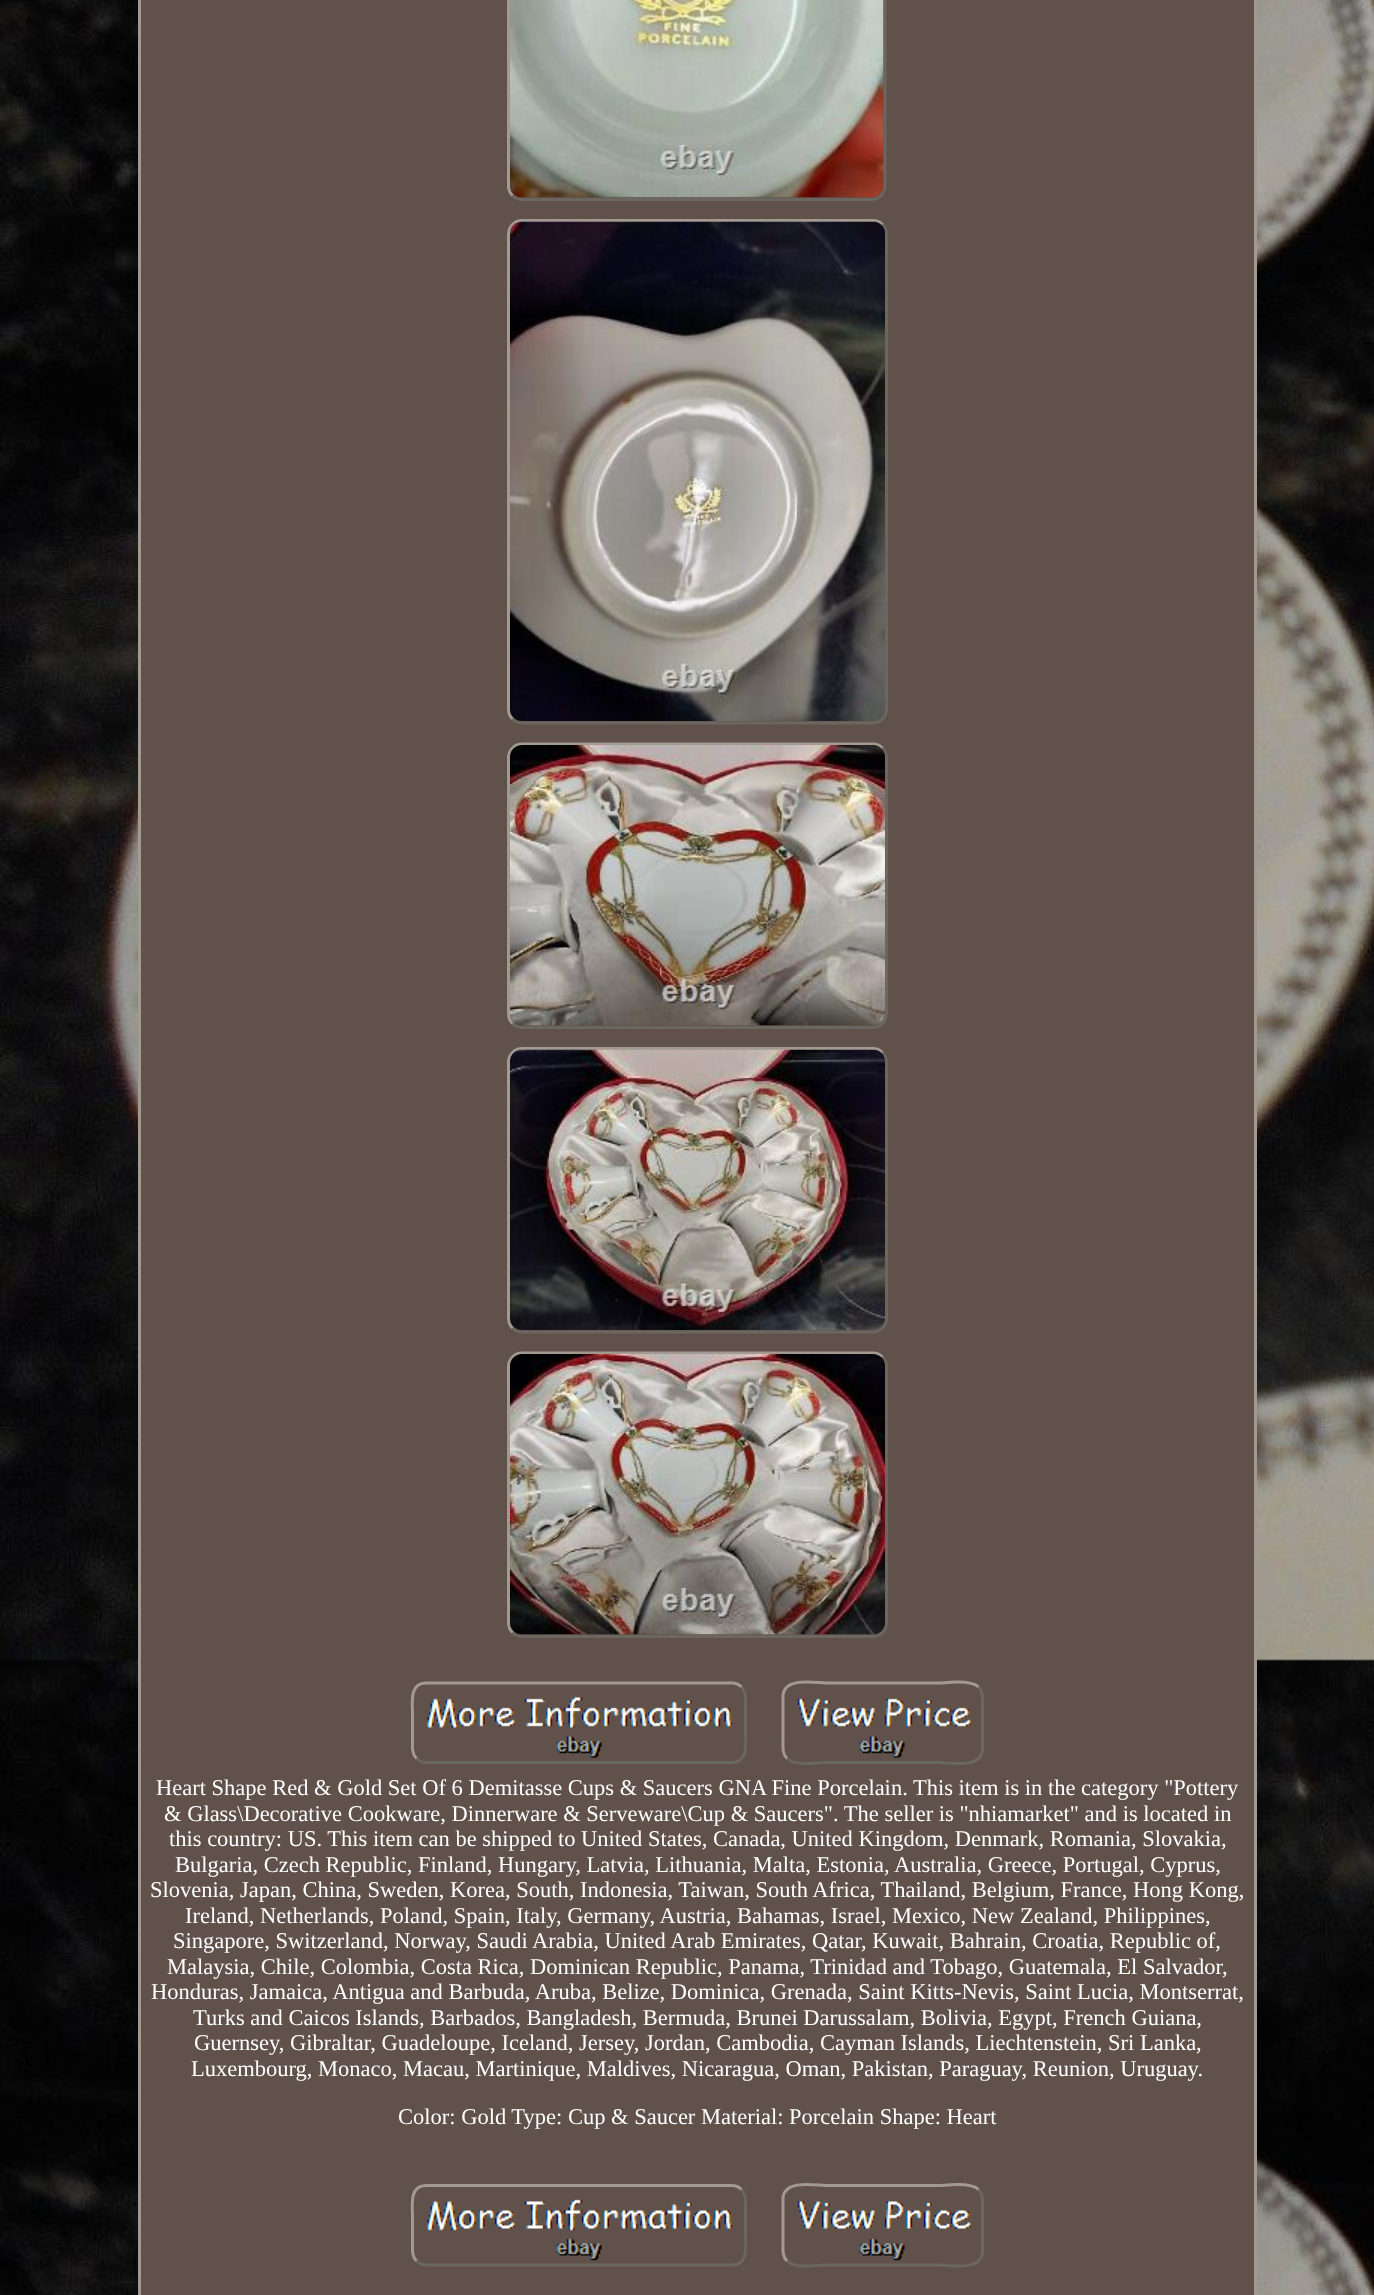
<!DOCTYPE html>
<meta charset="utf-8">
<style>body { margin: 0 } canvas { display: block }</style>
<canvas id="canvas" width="1374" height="2295"></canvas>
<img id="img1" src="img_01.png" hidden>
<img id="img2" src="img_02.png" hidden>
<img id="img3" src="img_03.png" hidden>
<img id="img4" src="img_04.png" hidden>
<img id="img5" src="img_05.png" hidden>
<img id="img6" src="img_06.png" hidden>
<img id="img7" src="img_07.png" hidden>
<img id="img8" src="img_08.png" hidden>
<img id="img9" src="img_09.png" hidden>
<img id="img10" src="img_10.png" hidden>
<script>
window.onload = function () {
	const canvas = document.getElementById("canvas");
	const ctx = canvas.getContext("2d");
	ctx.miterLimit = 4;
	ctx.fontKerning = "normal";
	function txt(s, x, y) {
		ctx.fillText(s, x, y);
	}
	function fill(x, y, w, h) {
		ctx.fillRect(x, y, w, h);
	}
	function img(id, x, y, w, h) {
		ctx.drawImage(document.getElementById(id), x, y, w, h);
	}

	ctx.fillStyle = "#FFFFFF";
	fill(0, 0, 1374, 2295);
	img("img1", 0, 0, 1374, 2295);
	ctx.fillStyle = "#60514A";
	ctx.beginPath();
	ctx.rect(139.5, -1.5, 1116, 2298);
	ctx.fill();
	ctx.strokeStyle = "#A29990";
	ctx.lineWidth = 3;
	ctx.stroke();
	ctx.beginPath();
	ctx.moveTo(881, -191);
	ctx.bezierCurveTo(883.5, -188.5, 885, -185, 885, -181.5);
	ctx.lineTo(885, 186);
	ctx.bezierCurveTo(885, 189.5, 883.5, 193, 881, 195.5);
	ctx.bezierCurveTo(878.5, 198, 875, 199.5, 871.5, 199.5);
	ctx.lineTo(522, 199.5);
	ctx.bezierCurveTo(518.5, 199.5, 515, 198, 512.5, 195.5);
	ctx.strokeStyle = "#6C6660";
	ctx.stroke();
	ctx.beginPath();
	ctx.moveTo(512.5, 195.5);
	ctx.bezierCurveTo(510, 193, 508.5, 189.5, 508.5, 186);
	ctx.lineTo(508.5, -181.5);
	ctx.bezierCurveTo(508.5, -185, 510, -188.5, 512.5, -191);
	ctx.bezierCurveTo(515, -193.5, 518.5, -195, 522, -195);
	ctx.lineTo(871.5, -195);
	ctx.bezierCurveTo(875, -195, 878.5, -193.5, 881, -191);
	ctx.strokeStyle = "#A29990";
	ctx.stroke();
	img("img2", 510, 0, 374, 198);
	ctx.beginPath();
	ctx.moveTo(882.5, 224.5);
	ctx.bezierCurveTo(885, 227, 886.5, 230.5, 886.5, 234);
	ctx.lineTo(886.5, 709.5);
	ctx.bezierCurveTo(886.5, 713, 885, 716.5, 882.5, 719);
	ctx.bezierCurveTo(880, 721.5, 876.5, 723, 873, 723);
	ctx.lineTo(522, 723);
	ctx.bezierCurveTo(518.5, 723, 515, 721.5, 512.5, 719);
	ctx.strokeStyle = "#6C6660";
	ctx.stroke();
	ctx.beginPath();
	ctx.moveTo(512.5, 719);
	ctx.bezierCurveTo(510, 716.5, 508.5, 713, 508.5, 709.5);
	ctx.lineTo(508.5, 234);
	ctx.bezierCurveTo(508.5, 230.5, 510, 227, 512.5, 224.5);
	ctx.bezierCurveTo(515, 222, 518.5, 220.5, 522, 220.5);
	ctx.lineTo(873, 220.5);
	ctx.bezierCurveTo(876.5, 220.5, 880, 222, 882.5, 224.5);
	ctx.strokeStyle = "#A29990";
	ctx.stroke();
	img("img3", 510, 221, 375, 500);
	ctx.beginPath();
	ctx.moveTo(882.5, 748);
	ctx.bezierCurveTo(885, 750.5, 886.5, 754, 886.5, 757.5);
	ctx.lineTo(886.5, 1014);
	ctx.bezierCurveTo(886.5, 1017.5, 885, 1021, 882.5, 1023.5);
	ctx.bezierCurveTo(880, 1026, 876.5, 1027.5, 873, 1027.5);
	ctx.lineTo(522, 1027.5);
	ctx.bezierCurveTo(518.5, 1027.5, 515, 1026, 512.5, 1023.5);
	ctx.strokeStyle = "#6C6660";
	ctx.stroke();
	ctx.beginPath();
	ctx.moveTo(512.5, 1023.5);
	ctx.bezierCurveTo(510, 1021, 508.5, 1017.5, 508.5, 1014);
	ctx.lineTo(508.5, 757.5);
	ctx.bezierCurveTo(508.5, 754, 510, 750.5, 512.5, 748);
	ctx.bezierCurveTo(515, 745.5, 518.5, 744, 522, 744);
	ctx.lineTo(873, 744);
	ctx.bezierCurveTo(876.5, 744, 880, 745.5, 882.5, 748);
	ctx.strokeStyle = "#A29990";
	ctx.stroke();
	img("img4", 510, 745, 375, 281);
	ctx.beginPath();
	ctx.moveTo(882.5, 1052.5);
	ctx.bezierCurveTo(885, 1055, 886.5, 1058.5, 886.5, 1062);
	ctx.lineTo(886.5, 1318.5);
	ctx.bezierCurveTo(886.5, 1322, 885, 1325.5, 882.5, 1328);
	ctx.bezierCurveTo(880, 1330.5, 876.5, 1332, 873, 1332);
	ctx.lineTo(522, 1332);
	ctx.bezierCurveTo(518.5, 1332, 515, 1330.5, 512.5, 1328);
	ctx.strokeStyle = "#6C6660";
	ctx.stroke();
	ctx.beginPath();
	ctx.moveTo(512.5, 1328);
	ctx.bezierCurveTo(510, 1325.5, 508.5, 1322, 508.5, 1318.5);
	ctx.lineTo(508.5, 1062);
	ctx.bezierCurveTo(508.5, 1058.5, 510, 1055, 512.5, 1052.5);
	ctx.bezierCurveTo(515, 1050, 518.5, 1048.5, 522, 1048.5);
	ctx.lineTo(873, 1048.5);
	ctx.bezierCurveTo(876.5, 1048.5, 880, 1050, 882.5, 1052.5);
	ctx.strokeStyle = "#A29990";
	ctx.stroke();
	img("img5", 510, 1049, 375, 281);
	ctx.beginPath();
	ctx.moveTo(882.5, 1357);
	ctx.bezierCurveTo(885, 1359.5, 886.5, 1363, 886.5, 1366.5);
	ctx.lineTo(886.5, 1623);
	ctx.bezierCurveTo(886.5, 1626.5, 885, 1630, 882.5, 1632.5);
	ctx.bezierCurveTo(880, 1635, 876.5, 1636.5, 873, 1636.5);
	ctx.lineTo(522, 1636.5);
	ctx.bezierCurveTo(518.5, 1636.5, 515, 1635, 512.5, 1632.5);
	ctx.strokeStyle = "#6C6660";
	ctx.stroke();
	ctx.beginPath();
	ctx.moveTo(512.5, 1632.5);
	ctx.bezierCurveTo(510, 1630, 508.5, 1626.5, 508.5, 1623);
	ctx.lineTo(508.5, 1366.5);
	ctx.bezierCurveTo(508.5, 1363, 510, 1359.5, 512.5, 1357);
	ctx.bezierCurveTo(515, 1354.5, 518.5, 1353, 522, 1353);
	ctx.lineTo(873, 1353);
	ctx.bezierCurveTo(876.5, 1353, 880, 1354.5, 882.5, 1357);
	ctx.strokeStyle = "#A29990";
	ctx.stroke();
	img("img6", 510, 1354, 375, 281);
	ctx.beginPath();
	ctx.moveTo(741.5, 1687);
	ctx.bezierCurveTo(746.5, 1692, 745.5, 1698.5, 745.5, 1705);
	ctx.lineTo(745.5, 1731.5);
	ctx.bezierCurveTo(745.5, 1742, 749, 1762.5, 732, 1762.5);
	ctx.lineTo(426, 1762.5);
	ctx.bezierCurveTo(422.5, 1762.5, 419, 1761, 416.5, 1758.5);
	ctx.strokeStyle = "#6C6660";
	ctx.stroke();
	ctx.beginPath();
	ctx.moveTo(416.5, 1758.5);
	ctx.bezierCurveTo(411.5, 1753.5, 412.5, 1747, 412.5, 1740);
	ctx.lineTo(412.5, 1714);
	ctx.bezierCurveTo(412.5, 1703.5, 409, 1683, 426, 1683);
	ctx.lineTo(732, 1683);
	ctx.bezierCurveTo(735.5, 1683, 739, 1684.5, 741.5, 1687);
	ctx.strokeStyle = "#A29990";
	ctx.stroke();
	ctx.beginPath();
	ctx.moveTo(978.5, 1687);
	ctx.bezierCurveTo(983.5, 1692, 982.5, 1698.5, 982.5, 1705);
	ctx.lineTo(982.5, 1750.5);
	ctx.bezierCurveTo(980.5, 1769, 949, 1762.5, 940, 1762.5);
	ctx.lineTo(825, 1762.5);
	ctx.bezierCurveTo(821, 1762.5, 795, 1767, 787, 1758.5);
	ctx.strokeStyle = "#6C6660";
	ctx.stroke();
	ctx.beginPath();
	ctx.moveTo(787, 1758.5);
	ctx.bezierCurveTo(782, 1753.5, 783, 1747, 783, 1740);
	ctx.lineTo(783, 1695);
	ctx.bezierCurveTo(785, 1676.5, 816.5, 1683, 825, 1683);
	ctx.lineTo(940, 1683);
	ctx.bezierCurveTo(944.5, 1683, 970.5, 1678.5, 978.5, 1687);
	ctx.strokeStyle = "#A29990";
	ctx.stroke();
	img("img7", 427, 1697, 306, 61);
	img("img8", 797, 1698, 174, 60);
	ctx.beginPath();
	ctx.moveTo(741.5, 2189.5);
	ctx.bezierCurveTo(746.5, 2194.5, 745.5, 2201, 745.5, 2208);
	ctx.lineTo(745.5, 2234);
	ctx.bezierCurveTo(745.5, 2244.5, 749, 2265, 732, 2265);
	ctx.lineTo(426, 2265);
	ctx.bezierCurveTo(422.5, 2265, 419, 2263.5, 416.5, 2261);
	ctx.strokeStyle = "#6C6660";
	ctx.stroke();
	ctx.beginPath();
	ctx.moveTo(416.5, 2261);
	ctx.bezierCurveTo(411.5, 2256, 412.5, 2249.5, 412.5, 2243);
	ctx.lineTo(412.5, 2216.5);
	ctx.bezierCurveTo(412.5, 2206, 409, 2185.5, 426, 2185.5);
	ctx.lineTo(732, 2185.5);
	ctx.bezierCurveTo(735.5, 2185.5, 739, 2187, 741.5, 2189.5);
	ctx.strokeStyle = "#A29990";
	ctx.stroke();
	ctx.beginPath();
	ctx.moveTo(978.5, 2189.5);
	ctx.bezierCurveTo(983.5, 2194.5, 982.5, 2201, 982.5, 2208);
	ctx.lineTo(982.5, 2253);
	ctx.bezierCurveTo(980.5, 2271.5, 949, 2265, 940, 2265);
	ctx.lineTo(825, 2265);
	ctx.bezierCurveTo(821, 2265, 795, 2269.5, 787, 2261);
	ctx.strokeStyle = "#6C6660";
	ctx.stroke();
	ctx.beginPath();
	ctx.moveTo(787, 2261);
	ctx.bezierCurveTo(782, 2256, 783, 2249.5, 783, 2243);
	ctx.lineTo(783, 2197.5);
	ctx.bezierCurveTo(785, 2179, 816.5, 2185.5, 825, 2185.5);
	ctx.lineTo(940, 2185.5);
	ctx.bezierCurveTo(944.5, 2185.5, 970.5, 2181, 978.5, 2189.5);
	ctx.strokeStyle = "#A29990";
	ctx.stroke();
	img("img9", 427, 2199, 306, 62);
	img("img10", 797, 2201, 174, 60);
	ctx.font = "22.5px Liberation Serif";
	ctx.fillStyle = "#FFFFFF";
	txt("Heart Shape Red & Gold Set Of 6 Demitasse Cups & Saucers GNA Fine Porcelain. This item is in the category \"Pottery", 156, 1795);
	txt("& Glass\\Decorative Cookware, Dinnerware & Serveware\\Cup & Saucers\". The seller is \"nhiamarket\" and is located in", 164, 1821);
	txt("this country: US. This item can be shipped to United States, Canada, United Kingdom, Denmark, Romania, Slovakia,", 169, 1846);
	txt("Bulgaria, Czech Republic, Finland, Hungary, Latvia, Lithuania, Malta, Estonia, Australia, Greece, Portugal, Cyprus,", 175, 1872);
	txt("Slovenia, Japan, China, Sweden, Korea, South, Indonesia, Taiwan, South Africa, Thailand, Belgium, France, Hong Kong,", 150, 1897);
	txt("Ireland, Netherlands, Poland, Spain, Italy, Germany, Austria, Bahamas, Israel, Mexico, New Zealand, Philippines,", 185, 1923);
	txt("Singapore, Switzerland, Norway, Saudi Arabia, United Arab Emirates, Qatar, Kuwait, Bahrain, Croatia, Republic of,", 173, 1948);
	txt("Malaysia, Chile, Colombia, Costa Rica, Dominican Republic, Panama, Trinidad and Tobago, Guatemala, El Salvador,", 167, 1974);
	txt("Honduras, Jamaica, Antigua and Barbuda, Aruba, Belize, Dominica, Grenada, Saint Kitts-Nevis, Saint Lucia, Montserrat,", 151, 1999);
	txt("Turks and Caicos Islands, Barbados, Bangladesh, Bermuda, Brunei Darussalam, Bolivia, Egypt, French Guiana,", 193, 2025);
	txt("Guernsey, Gibraltar, Guadeloupe, Iceland, Jersey, Jordan, Cambodia, Cayman Islands, Liechtenstein, Sri Lanka,", 194, 2050);
	txt("Luxembourg, Monaco, Macau, Martinique, Maldives, Nicaragua, Oman, Pakistan, Paraguay, Reunion, Uruguay.", 191, 2076);
	txt("Color: Gold Type: Cup & Saucer Material: Porcelain Shape: Heart", 398, 2124);
};
</script>
